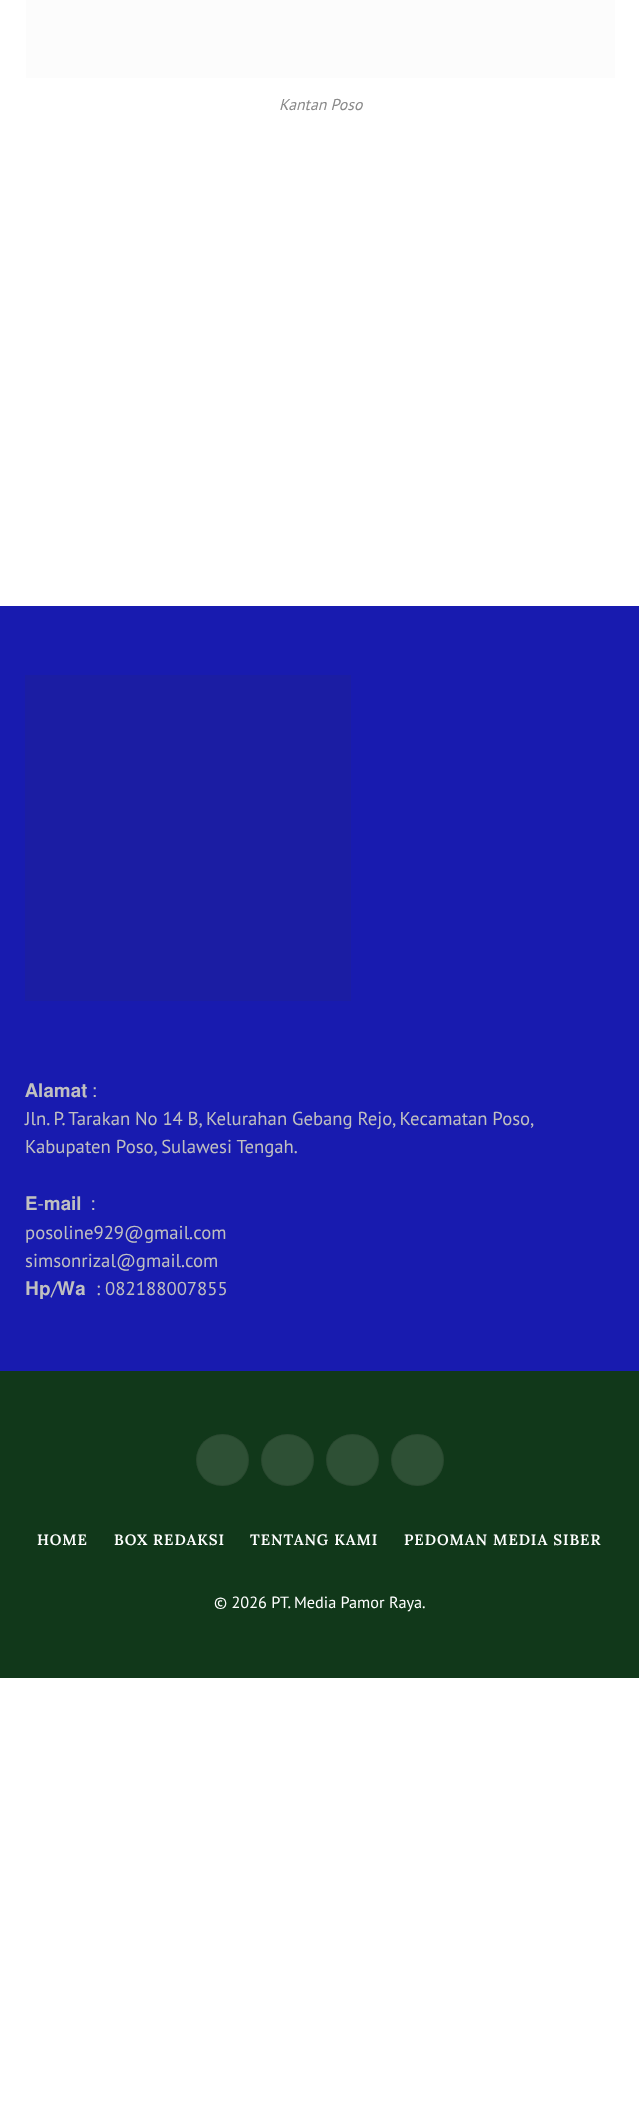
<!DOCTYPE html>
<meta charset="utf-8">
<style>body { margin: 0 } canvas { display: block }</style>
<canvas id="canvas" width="639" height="2102"></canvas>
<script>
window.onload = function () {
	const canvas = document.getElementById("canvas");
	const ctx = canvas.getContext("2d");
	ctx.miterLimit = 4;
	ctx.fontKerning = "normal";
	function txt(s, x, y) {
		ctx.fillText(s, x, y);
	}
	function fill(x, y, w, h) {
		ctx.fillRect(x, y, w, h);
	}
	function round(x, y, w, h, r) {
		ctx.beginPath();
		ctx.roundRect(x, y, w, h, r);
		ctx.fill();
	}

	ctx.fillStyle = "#FFFFFF";
	fill(0, 0, 639, 2102);
	ctx.fillStyle = "#FCFCFC";
	fill(26, 0, 589, 78);
	ctx.fillStyle = "#181BAF";
	fill(0, 606, 639, 765);
	ctx.fillStyle = "#1B1DA3";
	fill(25, 675, 326, 326);
	ctx.fillStyle = "#11381A";
	fill(0, 1371, 639, 307);
	ctx.fillStyle = "#2E5035";
	round(196, 1434, 53, 52, 26);
	ctx.beginPath();
	ctx.roundRect(196.5, 1434.5, 52, 51, 25.5);
	ctx.strokeStyle = "rgba(0, 0, 0, 0.09)";
	ctx.stroke();
	round(261, 1434, 53, 52, 26);
	ctx.beginPath();
	ctx.roundRect(261.5, 1434.5, 52, 51, 25.5);
	ctx.stroke();
	round(326, 1434, 53, 52, 26);
	ctx.beginPath();
	ctx.roundRect(326.5, 1434.5, 52, 51, 25.5);
	ctx.stroke();
	round(391, 1434, 53, 52, 26);
	ctx.beginPath();
	ctx.roundRect(391.5, 1434.5, 52, 51, 25.5);
	ctx.stroke();
	ctx.font = "italic 15.75px PT Sans";
	ctx.fillStyle = "#8A8A8A";
	txt("Kantan Poso", 279, 110);
	ctx.font = "18.75px FreeSans";
	ctx.fillStyle = "#C0C0C0";
	txt("𝐀𝐥𝐚𝐦𝐚𝐭 :", 25, 1097);
	ctx.wordSpacing = "-0.25px";
	ctx.font = "18.75px PT Sans";
	txt("Jln. P. Tarakan No 14 B, Kelurahan Gebang Rejo, Kecamatan Poso,", 25, 1125);
	ctx.wordSpacing = "0px";
	txt("Kabupaten Poso, Sulawesi Tengah.", 25, 1153);
	ctx.font = "18.75px FreeSans";
	txt("𝐄-𝐦𝐚𝐢𝐥  :", 25, 1210);
	ctx.font = "18.75px PT Sans";
	txt("posoline929@gmail.com", 25, 1239);
	txt("simsonrizal@gmail.com", 25, 1267);
	ctx.font = "18.75px FreeSans";
	txt("𝐇𝐩", 25, 1295);
	ctx.font = "18.75px PT Sans";
	txt("/", 51, 1295);
	ctx.font = "18.75px FreeSans";
	txt("𝐖𝐚", 57, 1295);
	ctx.font = "18.75px PT Sans";
	txt(": 082188007855", 96, 1295);
	ctx.letterSpacing = "1px";
	ctx.font = "600 15px Lora";
	ctx.fillStyle = "#FFFFFF";
	txt("HOME", 37, 1545);
	txt("BOX REDAKSI", 114, 1545);
	txt("TENTANG KAMI", 250, 1545);
	txt("PEDOMAN MEDIA SIBER", 404, 1545);
	ctx.letterSpacing = "0px";
	ctx.font = "16.25px PT Sans";
	txt("© 2026 PT. Media Pamor Raya.", 214, 1608);
};
</script>
